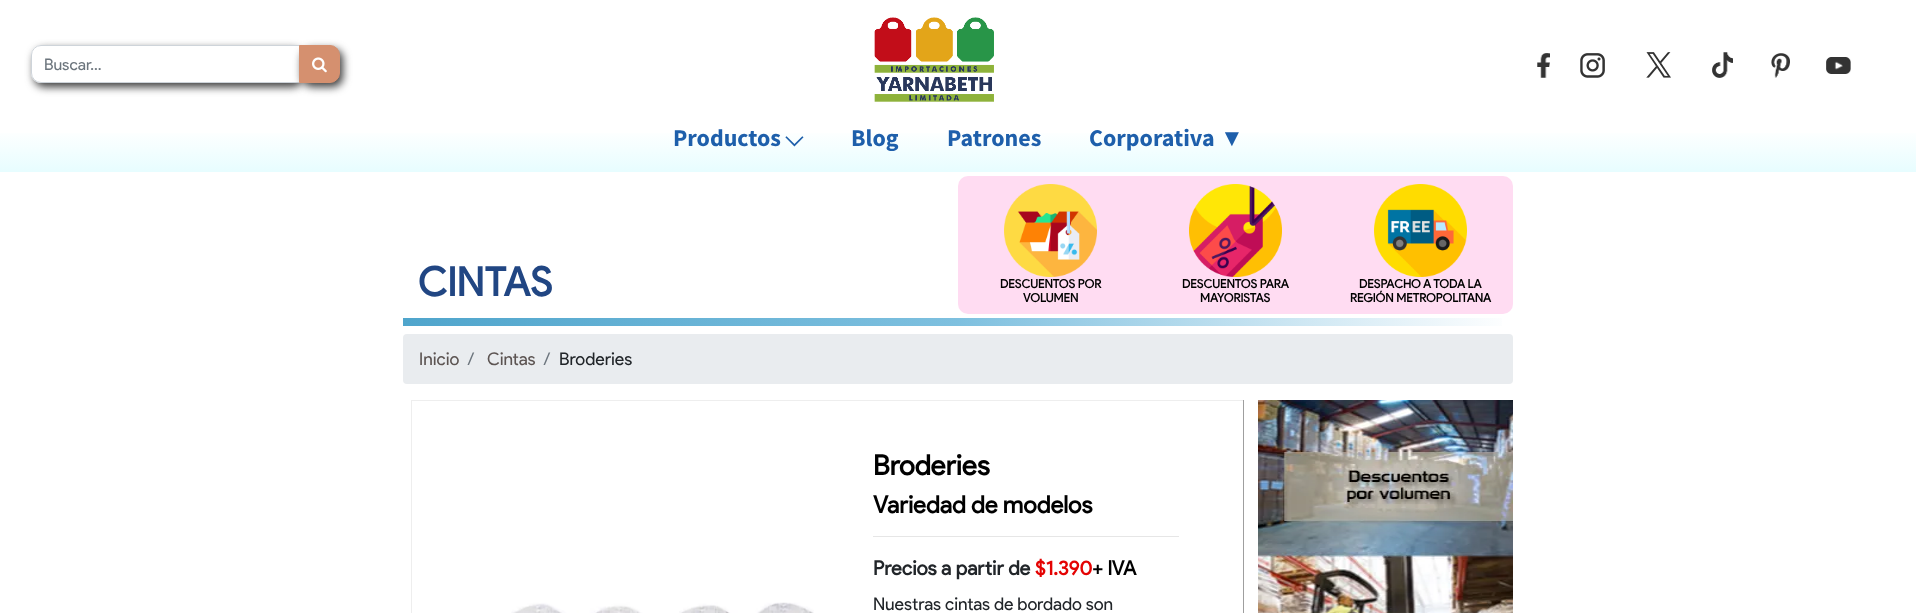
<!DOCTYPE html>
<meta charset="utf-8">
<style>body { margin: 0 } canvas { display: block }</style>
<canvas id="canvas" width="1916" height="613"></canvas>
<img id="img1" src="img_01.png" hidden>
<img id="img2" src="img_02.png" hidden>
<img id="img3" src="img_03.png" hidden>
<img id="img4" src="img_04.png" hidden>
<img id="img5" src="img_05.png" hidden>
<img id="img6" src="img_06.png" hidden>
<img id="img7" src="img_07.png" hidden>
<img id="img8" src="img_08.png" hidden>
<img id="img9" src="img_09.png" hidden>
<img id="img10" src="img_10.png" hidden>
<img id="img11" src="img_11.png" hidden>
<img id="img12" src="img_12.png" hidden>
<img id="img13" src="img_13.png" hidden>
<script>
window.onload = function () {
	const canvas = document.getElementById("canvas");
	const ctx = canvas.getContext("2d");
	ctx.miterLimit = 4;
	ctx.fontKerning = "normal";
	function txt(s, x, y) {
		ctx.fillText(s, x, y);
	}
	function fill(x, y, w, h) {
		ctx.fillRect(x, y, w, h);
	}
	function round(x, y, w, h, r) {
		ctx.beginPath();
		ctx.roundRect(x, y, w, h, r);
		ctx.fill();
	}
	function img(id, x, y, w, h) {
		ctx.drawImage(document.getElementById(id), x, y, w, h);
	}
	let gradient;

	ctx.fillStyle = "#FFFFFF";
	fill(0, 0, 1916, 613);
	gradient = ctx.createLinearGradient(958, 0, 958, 172);
	gradient.addColorStop(0, "#FFFFFF");
	gradient.addColorStop(0.75, "#FFFFFF");
	gradient.addColorStop(1, "#E7FDFF");
	ctx.fillStyle = gradient;
	fill(0, 133, 1916, 39);
	ctx.save();
	ctx.beginPath();
	ctx.moveTo(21, 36);
	ctx.lineTo(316, 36);
	ctx.lineTo(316, 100);
	ctx.lineTo(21, 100);
	ctx.closePath();
	ctx.moveTo(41, 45);
	ctx.lineTo(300, 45);
	ctx.lineTo(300, 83);
	ctx.lineTo(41, 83);
	ctx.bezierCurveTo(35.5, 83, 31, 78.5, 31, 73);
	ctx.lineTo(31, 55);
	ctx.bezierCurveTo(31, 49.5, 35.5, 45, 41, 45);
	ctx.closePath();
	ctx.clip("evenodd");
	ctx.fillStyle = "#3C3C3C";
	ctx.filter = "blur(4px)";
	ctx.beginPath();
	ctx.roundRect(34, 49, 269, 38, 10);
	ctx.fill();
	ctx.filter = "none";
	ctx.restore();
	ctx.beginPath();
	ctx.roundRect(31.5, 45.5, 268, 37, [9.5, 0, 0, 9.5]);
	ctx.strokeStyle = "#CED4DA";
	ctx.stroke();
	ctx.fillStyle = "#3C3C3C";
	ctx.filter = "blur(4px)";
	ctx.beginPath();
	ctx.roundRect(302, 49, 41, 38, 10);
	ctx.fill();
	ctx.filter = "none";
	ctx.fillStyle = "#D5906F";
	ctx.beginPath();
	ctx.roundRect(299.5, 45.5, 40, 37, [0, 9.5, 9.5, 0]);
	ctx.fill();
	ctx.strokeStyle = "#D5906F";
	ctx.stroke();
	img("img1", 312, 57, 15, 16);
	img("img2", 874, 17, 120, 85);
	img("img3", 1537, 53, 13, 25);
	img("img4", 1580, 53, 25, 25);
	img("img5", 1646, 52, 25, 26);
	img("img6", 1712, 52, 21, 26);
	img("img7", 1771, 53, 19, 25);
	img("img8", 1826, 57, 25, 17);
	ctx.fillStyle = "#FFDCF2";
	round(958, 176, 555, 138, 10);
	img("img9", 1004, 184, 93, 93);
	img("img10", 1189, 184, 93, 93);
	img("img11", 1374, 184, 93, 93);
	gradient = ctx.createLinearGradient(403, 322, 1513, 322);
	gradient.addColorStop(0, "#4FA5CC");
	gradient.addColorStop(0.5, "#7EC0DF");
	gradient.addColorStop(1, "#FFFFFF");
	ctx.fillStyle = gradient;
	fill(403, 318, 1099, 8);
	ctx.fillStyle = "#E9ECEF";
	round(403, 334, 1110, 50, 4);
	ctx.fillStyle = "#EEEEEE";
	fill(411, 400, 833, 1);
	ctx.fillStyle = "#9F9F9F";
	fill(1243, 400, 1, 213);
	ctx.fillStyle = "#EEEEEE";
	fill(411, 400, 1, 213);
	img("img12", 511, 602, 303, 11);
	ctx.fillStyle = "#E6E6E6";
	fill(873, 536, 306, 1);
	img("img13", 1258, 400, 255, 213);
	ctx.font = "16px Product Sans";
	ctx.fillStyle = "#6C757D";
	txt("Buscar…", 44, 70);
	ctx.font = "bold 24px Source Sans Pro";
	ctx.fillStyle = "#1E5FAB";
	txt("Productos", 673, 146);
	ctx.font = "bold 24px FreeSerif";
	txt("⌵", 785, 146);
	ctx.font = "bold 24px Source Sans Pro";
	txt("Blog", 851, 146);
	txt("Patrones", 947, 146);
	txt("Corporativa", 1089, 146);
	ctx.font = "bold 24px Liberation Sans";
	txt("▼", 1220, 146);
	ctx.font = "bold 40px Product Sans";
	ctx.fillStyle = "#214683";
	txt("CINTAS", 418, 296);
	ctx.font = "bold 12px Product Sans";
	ctx.fillStyle = "#000000";
	txt("DESCUENTOS POR", 1000, 288);
	txt("VOLUMEN", 1023, 302);
	txt("DESCUENTOS PARA", 1182, 288);
	txt("MAYORISTAS", 1200, 302);
	txt("DESPACHO A TODA LA", 1359, 288);
	txt("REGIÓN METROPOLITANA", 1350, 302);
	ctx.font = "17.6px Product Sans";
	ctx.fillStyle = "#5C5452";
	txt("Inicio", 419, 365);
	ctx.fillStyle = "#6C757D";
	txt("/", 467, 365);
	ctx.fillStyle = "#5C5452";
	txt("Cintas", 487, 365);
	ctx.fillStyle = "#6C757D";
	txt("/", 543, 365);
	ctx.fillStyle = "#212529";
	txt("Broderies", 559, 365);
	ctx.font = "bold 28px Product Sans";
	ctx.fillStyle = "#000000";
	txt("Broderies", 873, 475);
	ctx.font = "bold 24px Product Sans";
	txt("Variedad de modelos", 873, 513);
	ctx.font = "bold 20px Product Sans";
	ctx.fillStyle = "#212529";
	txt("Precios a partir de", 873, 575);
	ctx.fillStyle = "#E40303";
	txt("$1.390", 1035, 575);
	ctx.fillStyle = "#000000";
	txt("+ IVA", 1092, 575);
	ctx.font = "17.6px Product Sans";
	ctx.fillStyle = "#212529";
	txt("Nuestras cintas de bordado son", 873, 610);
};
</script>
